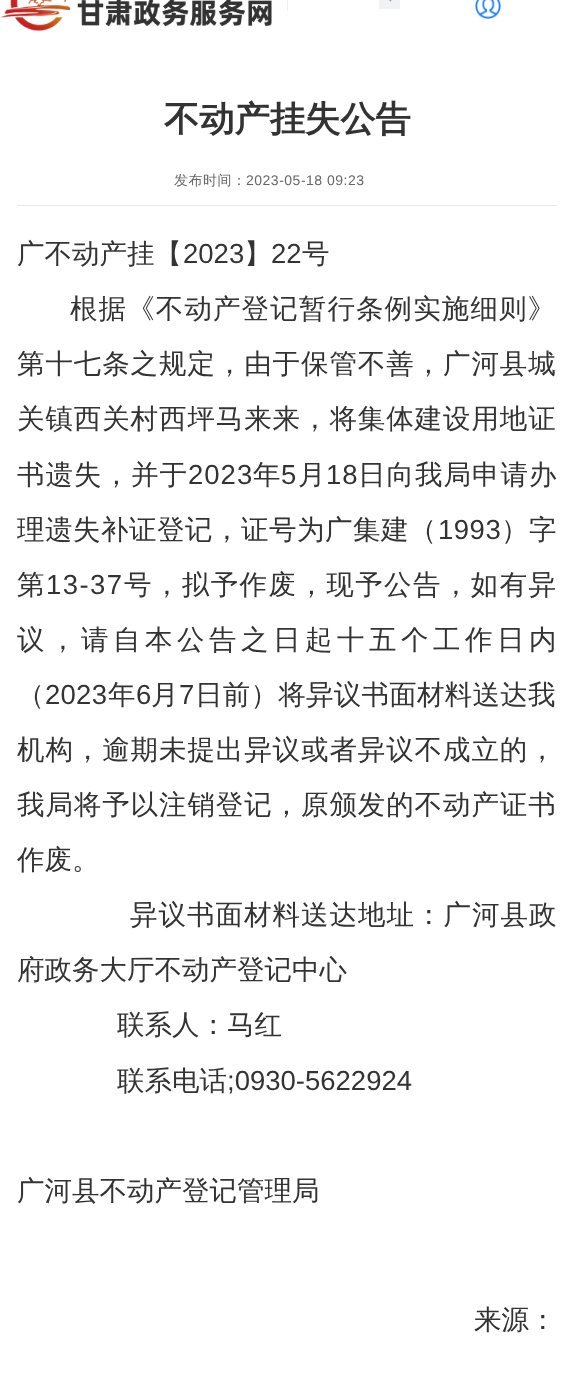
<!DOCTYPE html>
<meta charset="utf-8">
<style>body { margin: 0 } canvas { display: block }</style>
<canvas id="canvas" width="574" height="1394"></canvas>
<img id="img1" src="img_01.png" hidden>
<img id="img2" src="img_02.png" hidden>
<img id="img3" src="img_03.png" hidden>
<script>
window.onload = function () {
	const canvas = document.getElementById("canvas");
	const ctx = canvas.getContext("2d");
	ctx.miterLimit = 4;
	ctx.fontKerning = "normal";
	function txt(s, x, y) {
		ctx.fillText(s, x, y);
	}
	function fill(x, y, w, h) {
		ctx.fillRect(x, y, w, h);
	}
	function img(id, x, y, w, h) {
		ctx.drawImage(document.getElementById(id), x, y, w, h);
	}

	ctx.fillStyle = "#FFFFFF";
	fill(0, 0, 574, 1394);
	img("img1", 1, 0, 271, 31);
	ctx.fillStyle = "#EEEEEE";
	fill(287, 0, 1, 11);
	ctx.fillStyle = "#F1F2F3";
	fill(379, 0, 21, 9);
	img("img2", 389, 0, 3, 2);
	img("img3", 475, 0, 27, 20);
	ctx.fillStyle = "#E8E8E8";
	fill(17, 205, 540, 1);
	ctx.font = "bold 35.25px WenQuanYi Zen Hei";
	ctx.fillStyle = "#333333";
	txt("不动产挂失公告", 164, 131);
	ctx.letterSpacing = "0.5px";
	ctx.font = "500 14px WenQuanYi Zen Hei";
	ctx.fillStyle = "#666666";
	txt("发布时间：", 174, 185);
	ctx.font = "14px Liberation Sans";
	txt("2023-05-18 09:23", 246, 185);
	ctx.letterSpacing = "0px";
	ctx.font = "500 27.5px WenQuanYi Zen Hei";
	ctx.fillStyle = "#333333";
	txt("广不动产挂【", 17, 263);
	ctx.font = "27.5px Liberation Sans";
	txt("2023", 183, 263);
	ctx.font = "500 27.5px WenQuanYi Zen Hei";
	txt("】", 244, 263);
	ctx.font = "27.5px Liberation Sans";
	txt("22", 271, 263);
	ctx.font = "500 27.5px WenQuanYi Zen Hei";
	txt("号", 302, 263);
	ctx.letterSpacing = "1.1px";
	txt("根据《不动产登记暂行条例实施细则》", 70, 318);
	ctx.letterSpacing = "0.9px";
	txt("第十七条之规定，由于保管不善，广河县城", 17, 373);
	txt("关镇西关村西坪马来来，将集体建设用地证", 17, 428);
	ctx.letterSpacing = "1px";
	txt("书遗失，并于", 17, 484);
	ctx.font = "27.5px Liberation Sans";
	txt("2023", 188, 484);
	ctx.font = "500 27.5px WenQuanYi Zen Hei";
	txt("年", 253, 484);
	ctx.font = "27.5px Liberation Sans";
	txt("5", 281, 484);
	ctx.font = "500 27.5px WenQuanYi Zen Hei";
	txt("月", 298, 484);
	ctx.font = "27.5px Liberation Sans";
	txt("18", 326, 484);
	ctx.font = "500 27.5px WenQuanYi Zen Hei";
	txt("日向我局申请办", 358, 484);
	ctx.letterSpacing = "0.5px";
	txt("理遗失补证登记，证号为广集建（", 17, 539);
	ctx.font = "27.5px Liberation Sans";
	txt("1993", 438, 539);
	ctx.font = "500 27.5px WenQuanYi Zen Hei";
	txt("）字", 501, 539);
	ctx.letterSpacing = "1.4px";
	txt("第", 17, 594);
	ctx.font = "27.5px Liberation Sans";
	txt("13-37", 46, 594);
	ctx.font = "500 27.5px WenQuanYi Zen Hei";
	txt("号，拟予作废，现予公告，如有异", 124, 594);
	ctx.letterSpacing = "4.5px";
	txt("议，请自本公告之日起十五个工作日内", 17, 649);
	ctx.letterSpacing = "0.25px";
	txt("（", 17, 704);
	ctx.font = "27.5px Liberation Sans";
	txt("2023", 45, 704);
	ctx.font = "500 27.5px WenQuanYi Zen Hei";
	txt("年", 108, 704);
	ctx.font = "27.5px Liberation Sans";
	txt("6", 136, 704);
	ctx.font = "500 27.5px WenQuanYi Zen Hei";
	txt("月", 151, 704);
	ctx.font = "27.5px Liberation Sans";
	txt("7", 179, 704);
	ctx.font = "500 27.5px WenQuanYi Zen Hei";
	txt("日前）将异议书面材料送达我", 195, 704);
	ctx.letterSpacing = "0.9px";
	txt("机构，逾期未提出异议或者异议不成立的，", 17, 759);
	txt("我局将予以注销登记，原颁发的不动产证书", 17, 814);
	ctx.letterSpacing = "0px";
	txt("作废。", 17, 869);
	ctx.letterSpacing = "1px";
	txt("异议书面材料送达地址：广河县政", 130, 924);
	ctx.letterSpacing = "0px";
	txt("府政务大厅不动产登记中心", 17, 979);
	txt("联系人：马红", 117, 1034);
	txt("联系电话", 117, 1090);
	ctx.font = "27.5px Liberation Sans";
	txt(";0930-5622924", 227, 1090);
	ctx.font = "500 27.5px WenQuanYi Zen Hei";
	txt("广河县不动产登记管理局", 17, 1200);
	txt("来源：", 474, 1329);
};
</script>
